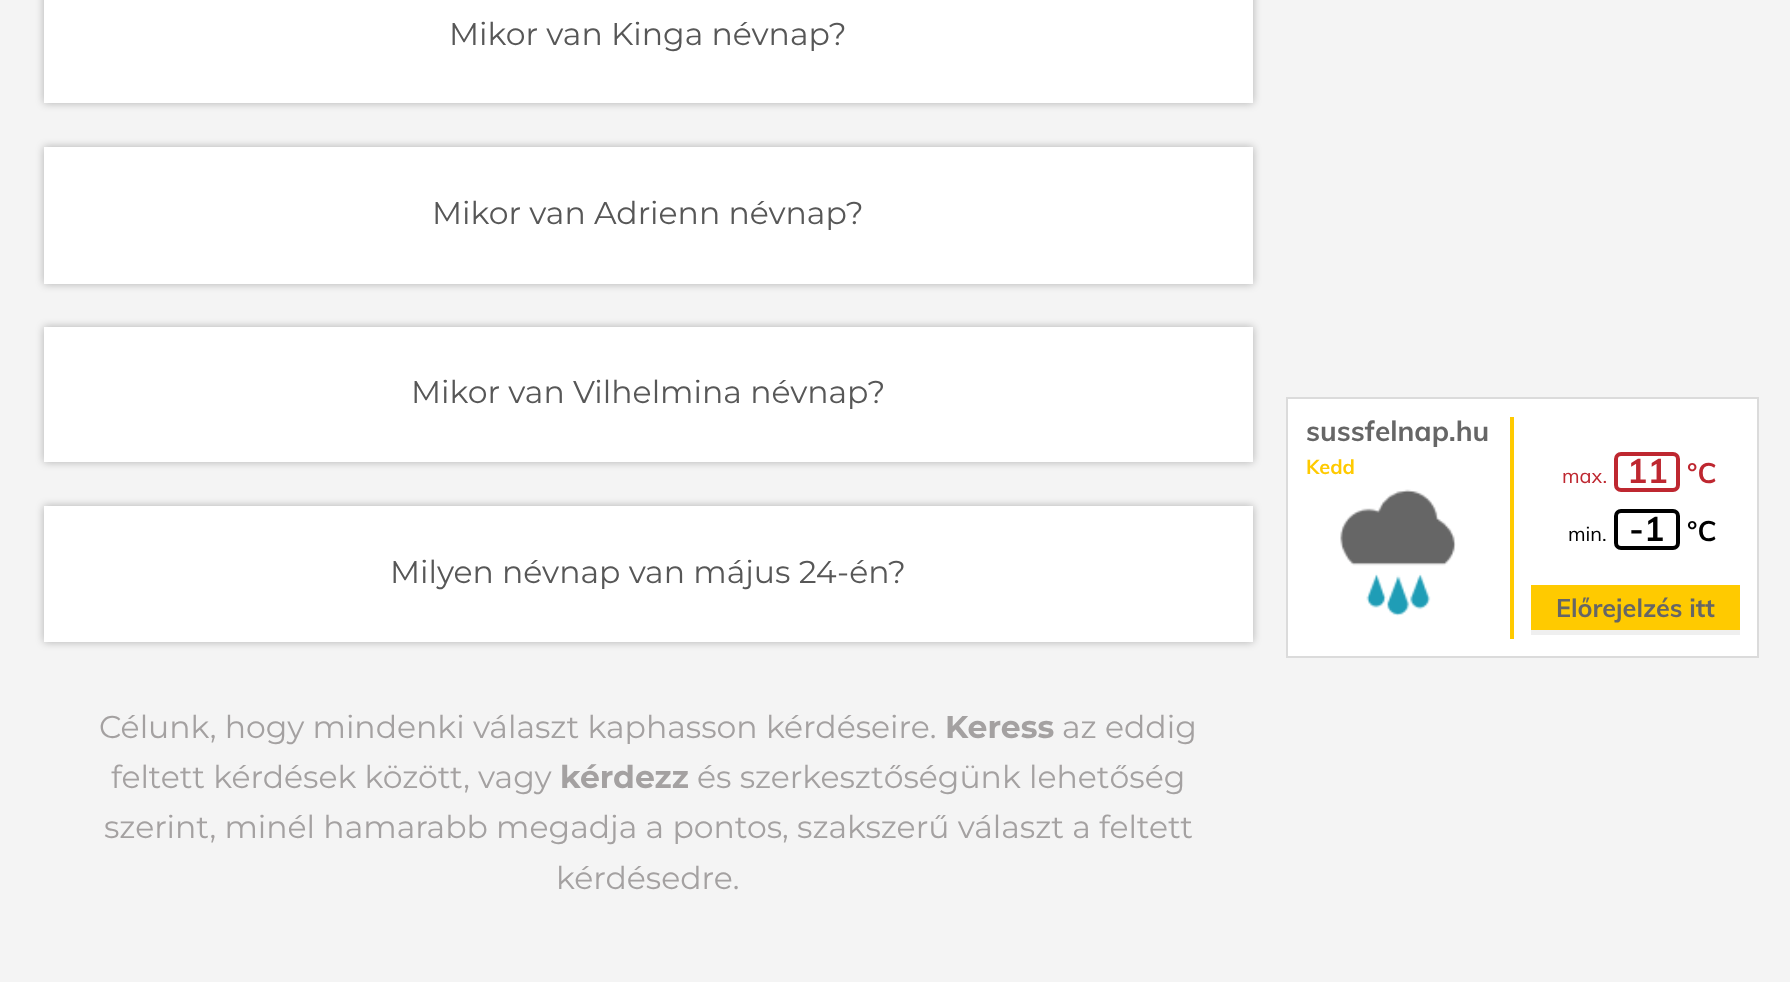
<!DOCTYPE html>
<meta charset="utf-8">
<style>body { margin: 0 } canvas { display: block }</style>
<canvas id="canvas" width="1790" height="982"></canvas>
<img id="img1" src="img_01.png" hidden>
<script>
window.onload = function () {
	const canvas = document.getElementById("canvas");
	const ctx = canvas.getContext("2d");
	ctx.miterLimit = 4;
	ctx.fontKerning = "normal";
	function txt(s, x, y) {
		ctx.fillText(s, x, y);
	}
	function fill(x, y, w, h) {
		ctx.fillRect(x, y, w, h);
	}
	function img(id, x, y, w, h) {
		ctx.drawImage(document.getElementById(id), x, y, w, h);
	}

	ctx.fillStyle = "#F4F4F4";
	fill(0, 0, 1790, 982);
	ctx.fillStyle = "rgba(0, 0, 0, 0.28)";
	ctx.filter = "blur(4.5px)";
	ctx.beginPath();
	ctx.rect(44, -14, 1209, 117);
	ctx.fill();
	ctx.filter = "none";
	ctx.fillStyle = "#FFFFFF";
	fill(44, 0, 1209, 103);
	ctx.fillStyle = "rgba(0, 0, 0, 0.28)";
	ctx.filter = "blur(4.5px)";
	ctx.beginPath();
	ctx.rect(44, 147, 1209, 137);
	ctx.fill();
	ctx.filter = "none";
	ctx.fillStyle = "#FFFFFF";
	fill(44, 147, 1209, 137);
	ctx.fillStyle = "rgba(0, 0, 0, 0.28)";
	ctx.filter = "blur(4.5px)";
	ctx.beginPath();
	ctx.rect(44, 327, 1209, 135);
	ctx.fill();
	ctx.filter = "none";
	ctx.fillStyle = "#FFFFFF";
	fill(44, 327, 1209, 135);
	ctx.fillStyle = "rgba(0, 0, 0, 0.28)";
	ctx.filter = "blur(4.5px)";
	ctx.beginPath();
	ctx.rect(44, 506, 1209, 136);
	ctx.fill();
	ctx.filter = "none";
	ctx.fillStyle = "#FFFFFF";
	fill(44, 506, 1209, 136);
	ctx.beginPath();
	ctx.rect(1287, 398, 471, 259);
	ctx.fill();
	ctx.strokeStyle = "#DBDBDB";
	ctx.lineWidth = 2;
	ctx.stroke();
	ctx.fillStyle = "#FFCA00";
	fill(1510, 417, 4, 222);
	img("img1", 1340, 489, 116, 127);
	ctx.beginPath();
	ctx.roundRect(1616, 454, 62, 36, 5);
	ctx.strokeStyle = "#BE2730";
	ctx.lineWidth = 4;
	ctx.stroke();
	ctx.beginPath();
	ctx.roundRect(1616, 511, 62, 37, 5);
	ctx.strokeStyle = "#000000";
	ctx.stroke();
	fill(1531, 585, 209, 45);
	ctx.fillStyle = "#EFEFEF";
	fill(1531, 630, 209, 5);
	ctx.font = "31.5px Montserrat";
	ctx.fillStyle = "#575757";
	txt("Mikor van Kinga névnap?", 449, 45);
	txt("Mikor van Adrienn névnap?", 432, 224);
	txt("Mikor van Vilhelmina névnap?", 411, 403);
	txt("Milyen névnap van május 24-én?", 390, 583);
	ctx.fillStyle = "#A4A1A1";
	txt("Célunk, hogy mindenki választ kaphasson kérdéseire.", 99, 738);
	ctx.font = "bold 31.5px Montserrat";
	txt("Keress", 945, 738);
	ctx.font = "31.5px Montserrat";
	txt("az eddig", 1062, 738);
	txt("feltett kérdések között, vagy", 111, 788);
	ctx.font = "bold 31.5px Montserrat";
	txt("kérdezz", 560, 788);
	ctx.font = "31.5px Montserrat";
	txt("és szerkesztőségünk lehetőség", 697, 788);
	txt("szerint, minél hamarabb megadja a pontos, szakszerű választ a feltett", 104, 838);
	txt("kérdésedre.", 556, 889);
	ctx.font = "bold 28px Muli";
	ctx.fillStyle = "#666666";
	txt("sussfelnap.hu", 1306, 441);
	ctx.font = "bold 20px Muli";
	ctx.fillStyle = "#FFCA00";
	txt("Kedd", 1306, 474);
	ctx.font = "20px Muli";
	ctx.fillStyle = "#BE2730";
	txt("max.", 1562, 483);
	ctx.font = "bold 34px Muli";
	txt("11", 1627, 483);
	ctx.font = "bold 28px Muli";
	txt("°C", 1687, 483);
	ctx.font = "20px Muli";
	ctx.fillStyle = "#000000";
	txt("min.", 1568, 541);
	ctx.font = "bold 34px Muli";
	txt("-1", 1629, 541);
	ctx.font = "bold 28px Muli";
	txt("°C", 1687, 541);
	ctx.font = "bold 25.25px Muli";
	ctx.fillStyle = "#666666";
	txt("Előrejelzés itt", 1556, 617);
};
</script>
